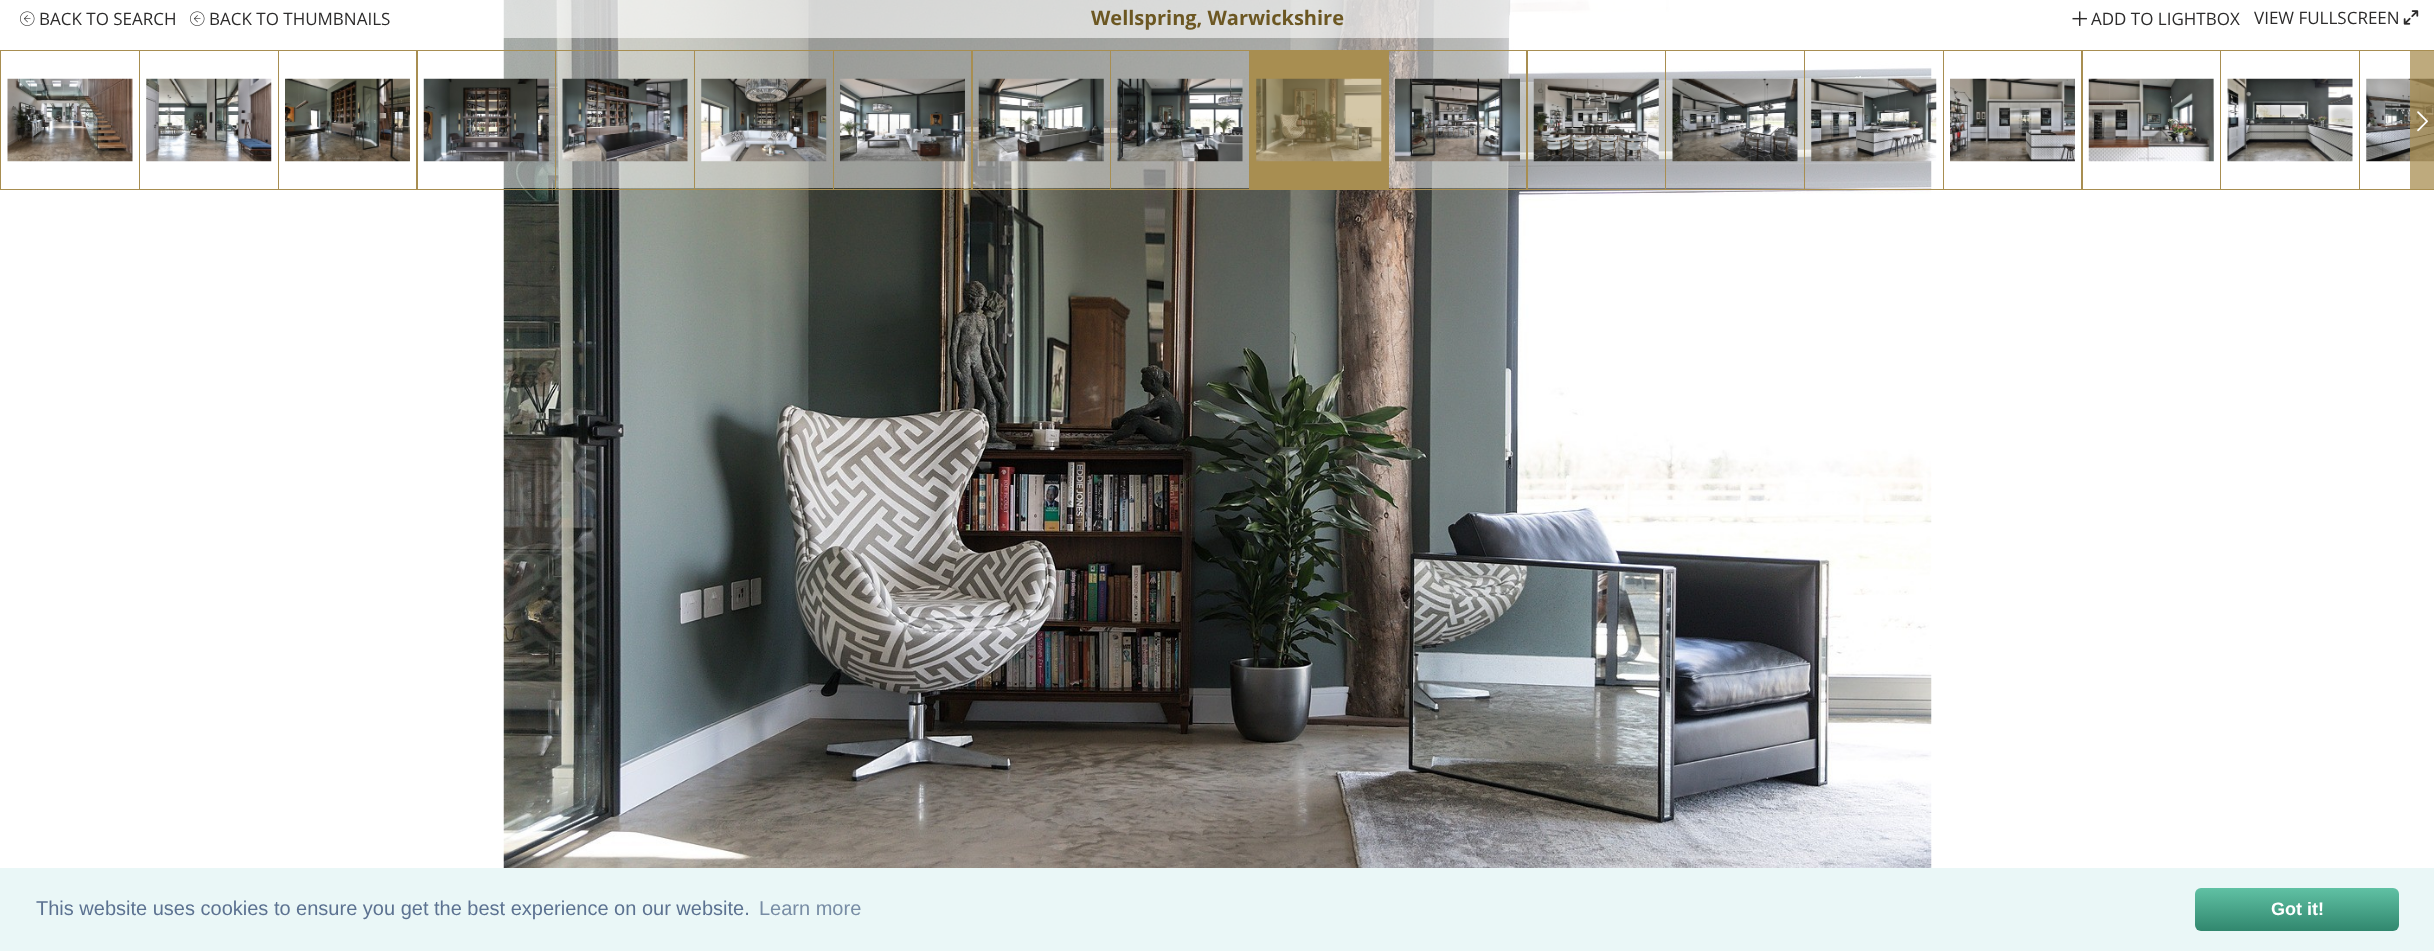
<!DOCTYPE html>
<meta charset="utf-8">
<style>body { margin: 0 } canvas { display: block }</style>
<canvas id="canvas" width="2434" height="951"></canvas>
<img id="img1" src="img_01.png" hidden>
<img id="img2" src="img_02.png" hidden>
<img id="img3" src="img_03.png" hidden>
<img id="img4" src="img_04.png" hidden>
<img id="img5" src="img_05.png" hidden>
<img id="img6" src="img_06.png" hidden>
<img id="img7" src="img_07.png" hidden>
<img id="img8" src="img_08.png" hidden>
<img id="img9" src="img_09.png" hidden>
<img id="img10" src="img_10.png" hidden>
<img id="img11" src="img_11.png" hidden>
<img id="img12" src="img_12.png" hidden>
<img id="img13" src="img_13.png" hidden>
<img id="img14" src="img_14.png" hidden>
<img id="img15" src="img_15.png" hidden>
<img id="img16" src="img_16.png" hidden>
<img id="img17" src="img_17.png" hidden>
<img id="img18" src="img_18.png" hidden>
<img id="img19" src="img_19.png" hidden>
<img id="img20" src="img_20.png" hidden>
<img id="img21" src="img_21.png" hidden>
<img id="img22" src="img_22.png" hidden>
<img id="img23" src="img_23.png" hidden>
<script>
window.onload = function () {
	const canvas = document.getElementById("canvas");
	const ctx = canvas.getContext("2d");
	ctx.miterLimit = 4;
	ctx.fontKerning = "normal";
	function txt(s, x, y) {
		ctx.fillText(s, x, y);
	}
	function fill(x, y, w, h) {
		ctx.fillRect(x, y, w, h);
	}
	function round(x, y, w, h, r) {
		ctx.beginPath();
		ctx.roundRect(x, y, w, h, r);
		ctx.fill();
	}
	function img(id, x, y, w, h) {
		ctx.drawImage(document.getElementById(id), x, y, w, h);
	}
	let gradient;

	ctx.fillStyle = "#FFFFFF";
	fill(0, 0, 2434, 951);
	img("img1", 503, 0, 1429, 868);
	ctx.fillStyle = "rgba(255, 255, 255, 0.5)";
	fill(503, 38, 1429, 150);
	ctx.strokeStyle = "#A88E51";
	ctx.strokeRect(0.5, 50.5, 139, 139);
	img("img2", 7, 78, 126, 84);
	ctx.strokeRect(139.5, 50.5, 139, 139);
	img("img3", 146, 78, 126, 84);
	ctx.strokeRect(278.5, 50.5, 139, 139);
	img("img4", 285, 78, 125, 84);
	ctx.strokeRect(416.5, 50.5, 139, 139);
	img("img5", 423, 78, 126, 84);
	ctx.strokeRect(555.5, 50.5, 139, 139);
	img("img6", 562, 78, 126, 84);
	ctx.strokeRect(694.5, 50.5, 139, 139);
	img("img7", 701, 78, 126, 84);
	ctx.strokeRect(833.5, 50.5, 139, 139);
	img("img8", 840, 78, 125, 84);
	ctx.strokeRect(971.5, 50.5, 139, 139);
	img("img9", 978, 78, 126, 84);
	ctx.strokeRect(1110.5, 50.5, 139, 139);
	img("img10", 1117, 78, 126, 84);
	ctx.fillStyle = "#A88E51";
	fill(1250, 50, 138, 140);
	img("img11", 1256, 78, 126, 84);
	ctx.strokeRect(1388.5, 50.5, 139, 139);
	img("img12", 1395, 78, 125, 84);
	ctx.strokeRect(1526.5, 50.5, 139, 139);
	img("img13", 1533, 78, 126, 84);
	ctx.strokeRect(1665.5, 50.5, 139, 139);
	img("img14", 1672, 78, 126, 84);
	ctx.strokeRect(1804.5, 50.5, 139, 139);
	img("img15", 1811, 78, 126, 84);
	ctx.strokeRect(1943.5, 50.5, 139, 139);
	img("img16", 1950, 78, 125, 84);
	ctx.strokeRect(2081.5, 50.5, 139, 139);
	img("img17", 2088, 78, 126, 84);
	ctx.strokeRect(2220.5, 50.5, 139, 139);
	img("img18", 2227, 78, 126, 84);
	ctx.strokeRect(2359.5, 50.5, 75, 139);
	img("img19", 2366, 78, 68, 84);
	ctx.fillStyle = "rgba(168, 142, 81, 0.75)";
	fill(2410, 51, 24, 138);
	img("img20", 2417, 111, 11, 21);
	ctx.fillStyle = "rgba(255, 255, 255, 0.8)";
	fill(503, 0, 1163, 38);
	img("img21", 20, 11, 15, 15);
	img("img21", 190, 11, 15, 15);
	img("img22", 2072, 11, 15, 15);
	img("img23", 2403, 10, 16, 15);
	ctx.fillStyle = "#EAF7F7";
	fill(0, 868, 2434, 83);
	gradient = ctx.createLinearGradient(2297, 931, 2297, 888);
	gradient.addColorStop(0, "#31876E");
	gradient.addColorStop(1, "#60C1A4");
	ctx.fillStyle = gradient;
	round(2195, 888, 204, 43, 6);
	ctx.font = "17px Open Sans";
	ctx.fillStyle = "#2C2B2B";
	txt("BACK TO SEARCH", 39, 25);
	txt("BACK TO THUMBNAILS", 209, 25);
	ctx.font = "bold 20px Open Sans";
	ctx.fillStyle = "#6C5722";
	txt("Wellspring, Warwickshire", 1091, 25);
	ctx.font = "17px Open Sans";
	ctx.fillStyle = "#2C2B2B";
	txt("ADD TO LIGHTBOX", 2091, 25);
	txt("VIEW FULLSCREEN", 2254, 24);
	ctx.font = "20px Liberation Sans";
	ctx.fillStyle = "#5C7291";
	txt("This website uses cookies to ensure you get the best experience on our website.", 36, 915);
	ctx.fillStyle = "#788DA5";
	txt("Learn more", 759, 915);
	ctx.font = "bold 18px Liberation Sans";
	ctx.fillStyle = "#FFFFFF";
	txt("Got it!", 2271, 915);
};
</script>
